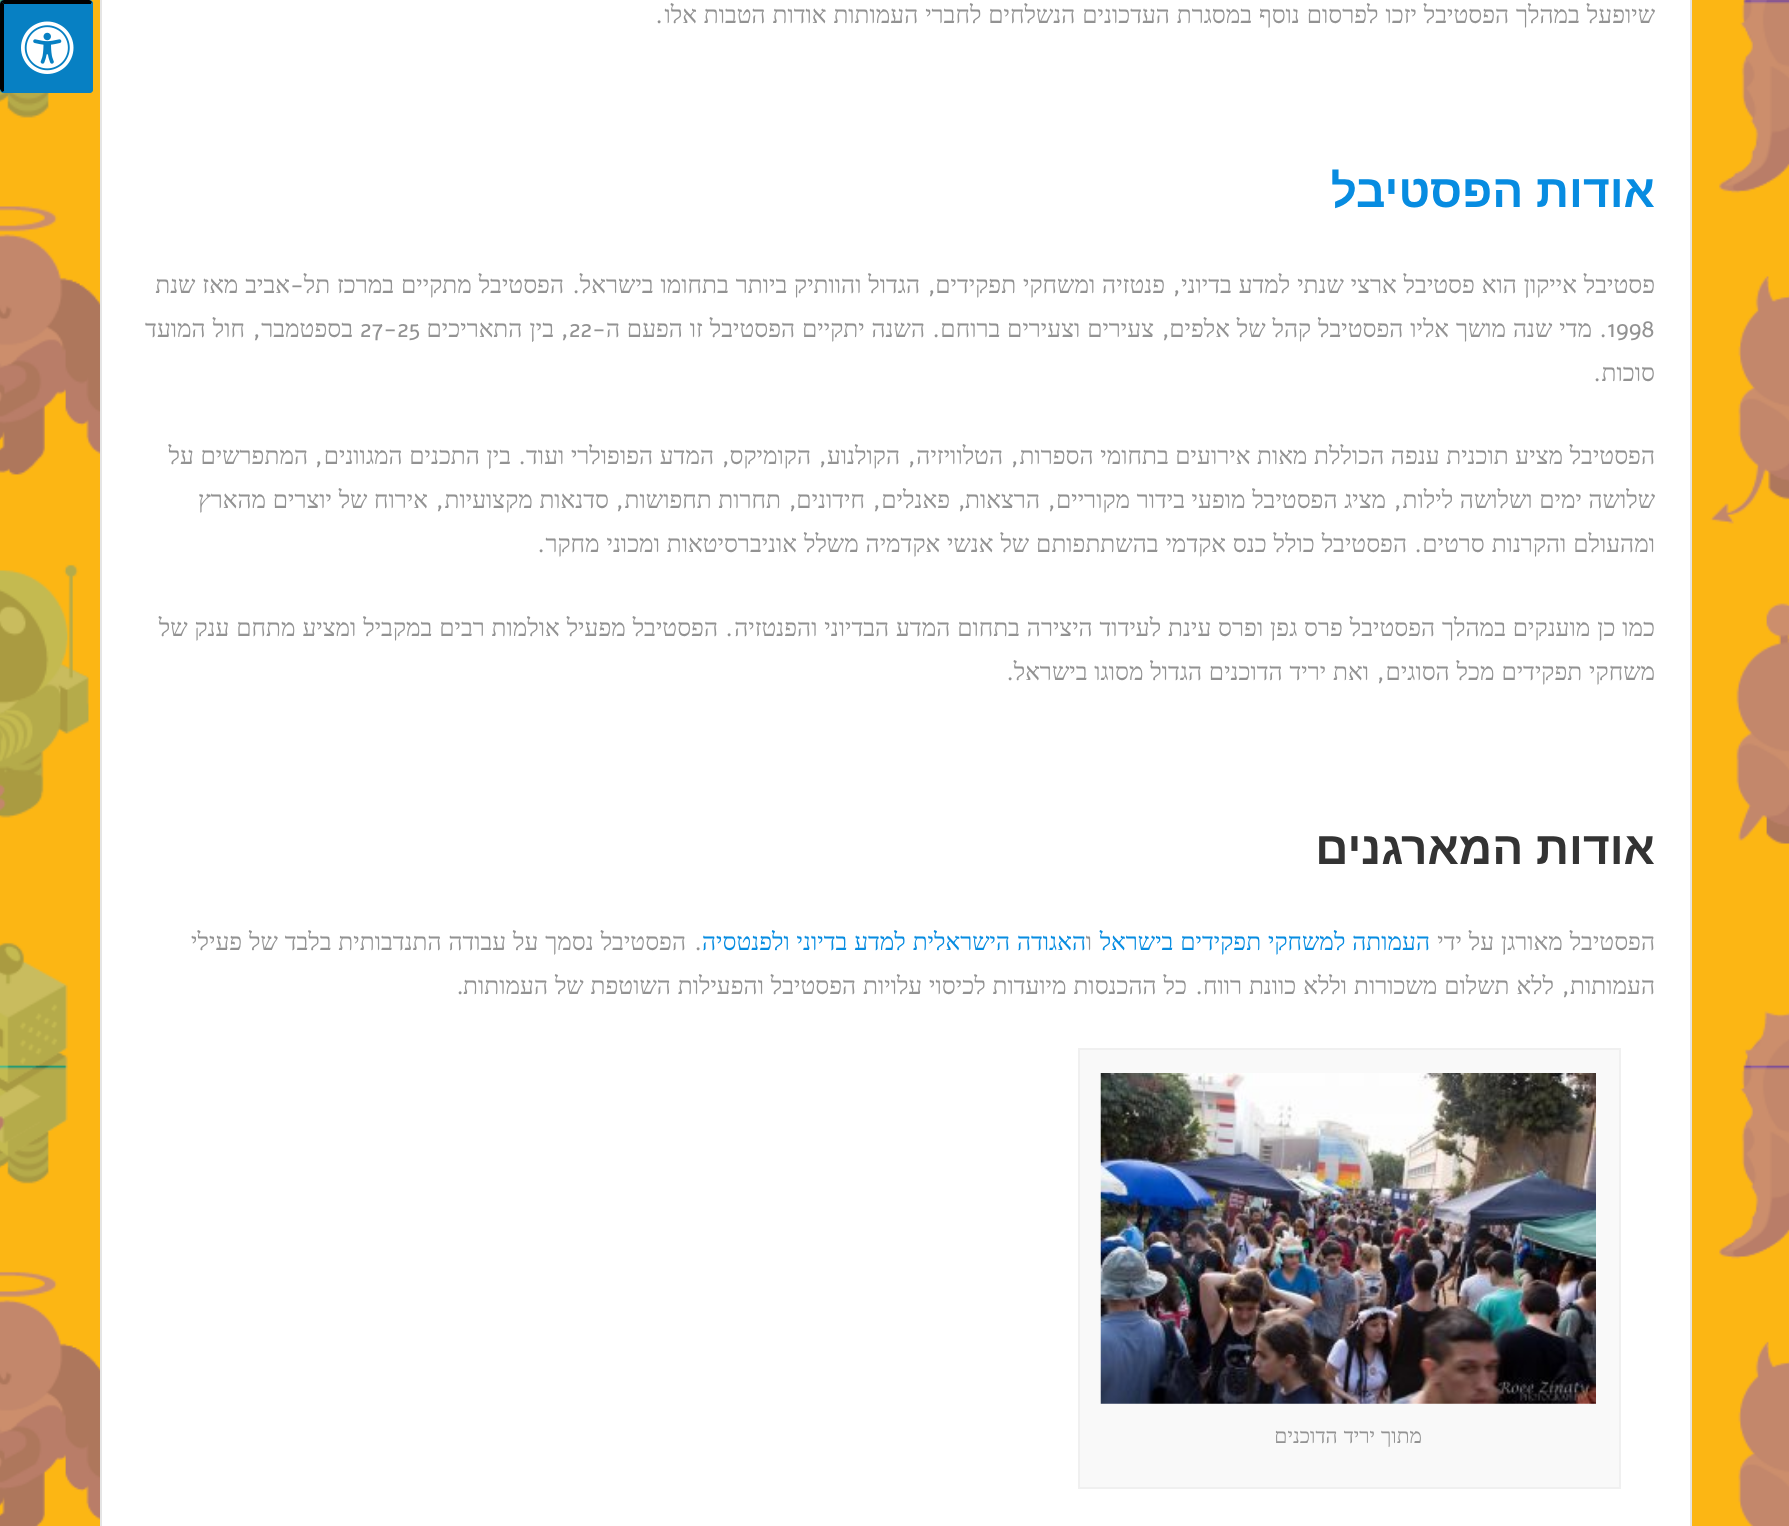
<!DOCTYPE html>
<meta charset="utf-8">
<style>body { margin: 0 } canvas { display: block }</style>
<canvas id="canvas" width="1789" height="1526"></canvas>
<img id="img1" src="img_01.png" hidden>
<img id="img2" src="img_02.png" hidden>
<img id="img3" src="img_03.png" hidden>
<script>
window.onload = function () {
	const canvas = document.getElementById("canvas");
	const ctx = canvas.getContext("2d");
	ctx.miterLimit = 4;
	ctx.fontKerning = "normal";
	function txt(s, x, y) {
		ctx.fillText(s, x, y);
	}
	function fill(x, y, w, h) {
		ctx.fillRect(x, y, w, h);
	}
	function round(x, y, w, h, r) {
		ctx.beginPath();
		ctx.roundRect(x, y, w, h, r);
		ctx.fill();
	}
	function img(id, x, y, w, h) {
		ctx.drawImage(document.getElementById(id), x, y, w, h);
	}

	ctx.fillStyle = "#FFFFFF";
	fill(0, 0, 1789, 1526);
	img("img1", 0, 0, 1789, 1526);
	ctx.beginPath();
	ctx.rect(101, -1, 1590, 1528);
	ctx.fill();
	ctx.strokeStyle = "#E5E5E5";
	ctx.lineWidth = 2;
	ctx.stroke();
	ctx.fillStyle = "#F9F9F9";
	ctx.beginPath();
	ctx.rect(1079, 1049, 541, 439);
	ctx.fill();
	ctx.strokeStyle = "#F0F0F0";
	ctx.stroke();
	img("img2", 1100, 1073, 496, 331);
	ctx.fillStyle = "#0780C3";
	round(0, 0, 93, 93, 4);
	ctx.fillStyle = "#000000";
	ctx.beginPath();
	ctx.moveTo(4, 0);
	ctx.lineTo(1, 1);
	ctx.lineTo(4, 4);
	ctx.lineTo(91, 4);
	ctx.lineTo(92, 2);
	ctx.bezierCurveTo(91, 1, 90, 0, 89, 0);
	ctx.closePath();
	ctx.fill();
	ctx.fillStyle = "#0780C3";
	ctx.beginPath();
	ctx.moveTo(93, 90);
	ctx.lineTo(92, 92);
	ctx.lineTo(90, 90);
	ctx.lineTo(91, 89);
	ctx.lineTo(91, 4);
	ctx.lineTo(92, 2);
	ctx.lineTo(93, 3);
	ctx.closePath();
	ctx.fill();
	ctx.beginPath();
	ctx.moveTo(3, 93);
	ctx.lineTo(2, 92);
	ctx.lineTo(4, 91);
	ctx.lineTo(89, 91);
	ctx.lineTo(90, 90);
	ctx.lineTo(92, 92);
	ctx.lineTo(90, 93);
	ctx.closePath();
	ctx.fill();
	ctx.fillStyle = "#000000";
	ctx.beginPath();
	ctx.moveTo(4, 4);
	ctx.lineTo(1, 1);
	ctx.lineTo(0, 4);
	ctx.lineTo(0, 89);
	ctx.lineTo(2, 92);
	ctx.lineTo(4, 91);
	ctx.closePath();
	ctx.fill();
	img("img3", 21, 21, 53, 53);
	ctx.wordSpacing = "0.75px";
	ctx.direction = "rtl";
	ctx.font = "24.5px Liberation Serif";
	ctx.fillStyle = "#929292";
	txt("שיופעל במהלך הפסטיבל יזכו לפרסום נוסף במסגרת העדכונים הנשלחים לחברי העמותות אודות הטבות אלו", 1655, 23);
	ctx.wordSpacing = "0px";
	ctx.font = "24.5px Alef";
	txt(".", 663, 23);
	ctx.font = "bold 46px Liberation Sans";
	ctx.fillStyle = "#078CE1";
	txt("אודות הפסטיבל", 1655, 207);
	ctx.wordSpacing = "0.75px";
	ctx.font = "24.5px Liberation Serif";
	ctx.fillStyle = "#929292";
	txt("פסטיבל אייקון הוא פסטיבל ארצי שנתי למדע בדיוני", 1655, 293);
	txt("פנטזיה ומשחקי תפקידים", 1165, 293);
	txt("הגדול והוותיק ביותר בתחומו בישראל", 920, 293);
	txt("הפסטיבל מתקיים במרכז תל", 564, 293);
	ctx.wordSpacing = "0px";
	ctx.font = "24.5px Alef";
	txt("-", 304, 293);
	ctx.wordSpacing = "0.75px";
	ctx.font = "24.5px Liberation Serif";
	txt("אביב מאז שנת", 290, 293);
	ctx.wordSpacing = "0px";
	ctx.font = "24.5px Alef";
	txt(",", 1181, 293);
	txt(",", 936, 293);
	txt(".", 580, 293);
	ctx.direction = "ltr";
	txt("1998", 1607, 337);
	ctx.wordSpacing = "0.75px";
	ctx.direction = "rtl";
	ctx.font = "24.5px Liberation Serif";
	txt("מדי שנה מושך אליו הפסטיבל קהל של אלפים", 1592, 337);
	txt("צעירים וצעירים ברוחם", 1154, 337);
	txt("השנה יתקיים הפסטיבל זו הפעם ה", 925, 337);
	ctx.wordSpacing = "0px";
	ctx.font = "24.5px Alef";
	txt("-", 606, 337);
	ctx.direction = "ltr";
	txt("22", 569, 337);
	ctx.wordSpacing = "1px";
	ctx.direction = "rtl";
	ctx.font = "24.5px Liberation Serif";
	txt("בין התאריכים", 554, 337);
	ctx.wordSpacing = "0px";
	ctx.direction = "ltr";
	ctx.font = "24.5px Alef";
	txt("27-25", 360, 337);
	ctx.direction = "rtl";
	ctx.font = "24.5px Liberation Serif";
	txt("בספטמבר", 353, 337);
	ctx.wordSpacing = "1px";
	txt("חול המועד", 245, 337);
	ctx.wordSpacing = "0px";
	ctx.font = "24.5px Alef";
	txt(".", 1607, 337);
	txt(",", 1170, 337);
	txt(".", 940, 337);
	txt(",", 569, 337);
	txt(",", 261, 337);
	ctx.font = "24.5px Liberation Serif";
	txt("סוכות", 1655, 381);
	ctx.font = "24.5px Alef";
	txt(".", 1601, 381);
	ctx.wordSpacing = "0.5px";
	ctx.font = "24.5px Liberation Serif";
	txt("הפסטיבל מציע תוכנית ענפה הכוללת מאות אירועים בתחומי הספרות", 1655, 464);
	ctx.wordSpacing = "0px";
	ctx.font = "24.5px Alef";
	txt(",", 1019, 464);
	ctx.font = "24.5px Liberation Serif";
	txt("הטלוויזיה", 1003, 464);
	ctx.font = "24.5px Alef";
	txt(",", 916, 464);
	ctx.font = "24.5px Liberation Serif";
	txt("הקולנוע", 900, 464);
	ctx.font = "24.5px Alef";
	txt(",", 827, 464);
	ctx.font = "24.5px Liberation Serif";
	txt("הקומיקס", 811, 464);
	ctx.font = "24.5px Alef";
	txt(",", 730, 464);
	ctx.wordSpacing = "0.5px";
	ctx.font = "24.5px Liberation Serif";
	txt("המדע הפופולרי ועוד", 714, 464);
	ctx.wordSpacing = "0px";
	ctx.font = "24.5px Alef";
	txt(".", 526, 464);
	ctx.wordSpacing = "0.5px";
	ctx.font = "24.5px Liberation Serif";
	txt("בין התכנים המגוונים", 511, 464);
	ctx.wordSpacing = "0px";
	ctx.font = "24.5px Alef";
	txt(",", 323, 464);
	ctx.wordSpacing = "0.5px";
	ctx.font = "24.5px Liberation Serif";
	txt("המתפרשים על", 308, 464);
	txt("שלושה ימים ושלושה לילות", 1655, 508);
	ctx.wordSpacing = "0px";
	ctx.font = "24.5px Alef";
	txt(",", 1402, 508);
	ctx.wordSpacing = "0.5px";
	ctx.font = "24.5px Liberation Serif";
	txt("מציג הפסטיבל מופעי בידור מקוריים", 1386, 508);
	ctx.wordSpacing = "0px";
	ctx.font = "24.5px Alef";
	txt(",", 1056, 508);
	ctx.font = "24.5px Liberation Serif";
	txt("הרצאות", 1040, 508);
	ctx.font = "24.5px Alef";
	txt(",", 966, 508);
	ctx.font = "24.5px Liberation Serif";
	txt("פאנלים", 950, 508);
	ctx.font = "24.5px Alef";
	txt(",", 881, 508);
	ctx.font = "24.5px Liberation Serif";
	txt("חידונים", 865, 508);
	ctx.font = "24.5px Alef";
	txt(",", 797, 508);
	ctx.wordSpacing = "0.5px";
	ctx.font = "24.5px Liberation Serif";
	txt("תחרות תחפושות", 781, 508);
	ctx.wordSpacing = "0px";
	ctx.font = "24.5px Alef";
	txt(",", 624, 508);
	ctx.wordSpacing = "0.5px";
	ctx.font = "24.5px Liberation Serif";
	txt("סדנאות מקצועיות", 609, 508);
	ctx.wordSpacing = "0px";
	ctx.font = "24.5px Alef";
	txt(",", 444, 508);
	ctx.wordSpacing = "0.5px";
	ctx.font = "24.5px Liberation Serif";
	txt("אירוח של יוצרים מהארץ", 428, 508);
	ctx.wordSpacing = "0.75px";
	txt("ומהעולם והקרנות סרטים", 1655, 552);
	ctx.wordSpacing = "0px";
	ctx.font = "24.5px Alef";
	txt(".", 1422, 552);
	ctx.wordSpacing = "0.75px";
	ctx.font = "24.5px Liberation Serif";
	txt("הפסטיבל כולל כנס אקדמי בהשתתפותם של אנשי אקדמיה משלל אוניברסיטאות ומכוני מחקר", 1407, 552);
	ctx.wordSpacing = "0px";
	ctx.font = "24.5px Alef";
	txt(".", 545, 552);
	ctx.wordSpacing = "0.75px";
	ctx.font = "24.5px Liberation Serif";
	txt("כמו כן מוענקים במהלך הפסטיבל פרס גפן ופרס עינת לעידוד היצירה בתחום המדע הבדיוני והפנטזיה", 1655, 636);
	ctx.wordSpacing = "0px";
	ctx.font = "24.5px Alef";
	txt(".", 733, 636);
	ctx.wordSpacing = "0.75px";
	ctx.font = "24.5px Liberation Serif";
	txt("הפסטיבל מפעיל אולמות רבים במקביל ומציע מתחם ענק של", 718, 636);
	txt("משחקי תפקידים מכל הסוגים", 1655, 680);
	ctx.wordSpacing = "0px";
	ctx.font = "24.5px Alef";
	txt(",", 1385, 680);
	ctx.wordSpacing = "0.75px";
	ctx.font = "24.5px Liberation Serif";
	txt("ואת יריד הדוכנים הגדול מסוגו בישראל", 1369, 680);
	ctx.wordSpacing = "0px";
	ctx.font = "24.5px Alef";
	txt(".", 1014, 680);
	ctx.font = "bold 46px Liberation Sans";
	ctx.fillStyle = "#333333";
	txt("אודות המארגנים", 1655, 864);
	ctx.wordSpacing = "0.75px";
	ctx.font = "24.5px Liberation Serif";
	ctx.fillStyle = "#929292";
	txt("הפסטיבל מאורגן על ידי", 1655, 950);
	ctx.fillStyle = "#078CE1";
	txt("העמותה למשחקי תפקידים בישראל", 1430, 950);
	ctx.wordSpacing = "0px";
	ctx.fillStyle = "#929292";
	txt("ו", 1092, 950);
	ctx.wordSpacing = "0.75px";
	ctx.fillStyle = "#078CE1";
	txt("האגודה הישראלית למדע בדיוני ולפנטסיה", 1086, 950);
	ctx.wordSpacing = "0px";
	ctx.font = "24.5px Alef";
	ctx.fillStyle = "#929292";
	txt(".", 702, 950);
	ctx.wordSpacing = "0.75px";
	ctx.font = "24.5px Liberation Serif";
	txt("הפסטיבל נסמך על עבודה התנדבותית בלבד של פעילי", 686, 950);
	ctx.wordSpacing = "0px";
	txt("העמותות", 1655, 994);
	ctx.font = "24.5px Alef";
	txt(",", 1570, 994);
	ctx.wordSpacing = "0.75px";
	ctx.font = "24.5px Liberation Serif";
	txt("ללא תשלום משכורות וללא כוונת רווח", 1554, 994);
	ctx.wordSpacing = "0px";
	ctx.font = "24.5px Alef";
	txt(".", 1203, 994);
	ctx.wordSpacing = "0.75px";
	ctx.font = "24.5px Liberation Serif";
	txt("כל ההכנסות מיועדות לכיסוי עלויות הפסטיבל והפעילות השוטפת של העמותות", 1187, 994);
	ctx.wordSpacing = "0px";
	ctx.font = "24.5px Alef";
	txt(".", 464, 994);
	ctx.wordSpacing = "0.75px";
	ctx.font = "21px Liberation Serif";
	txt("מתוך יריד הדוכנים", 1422, 1443);
};
</script>
